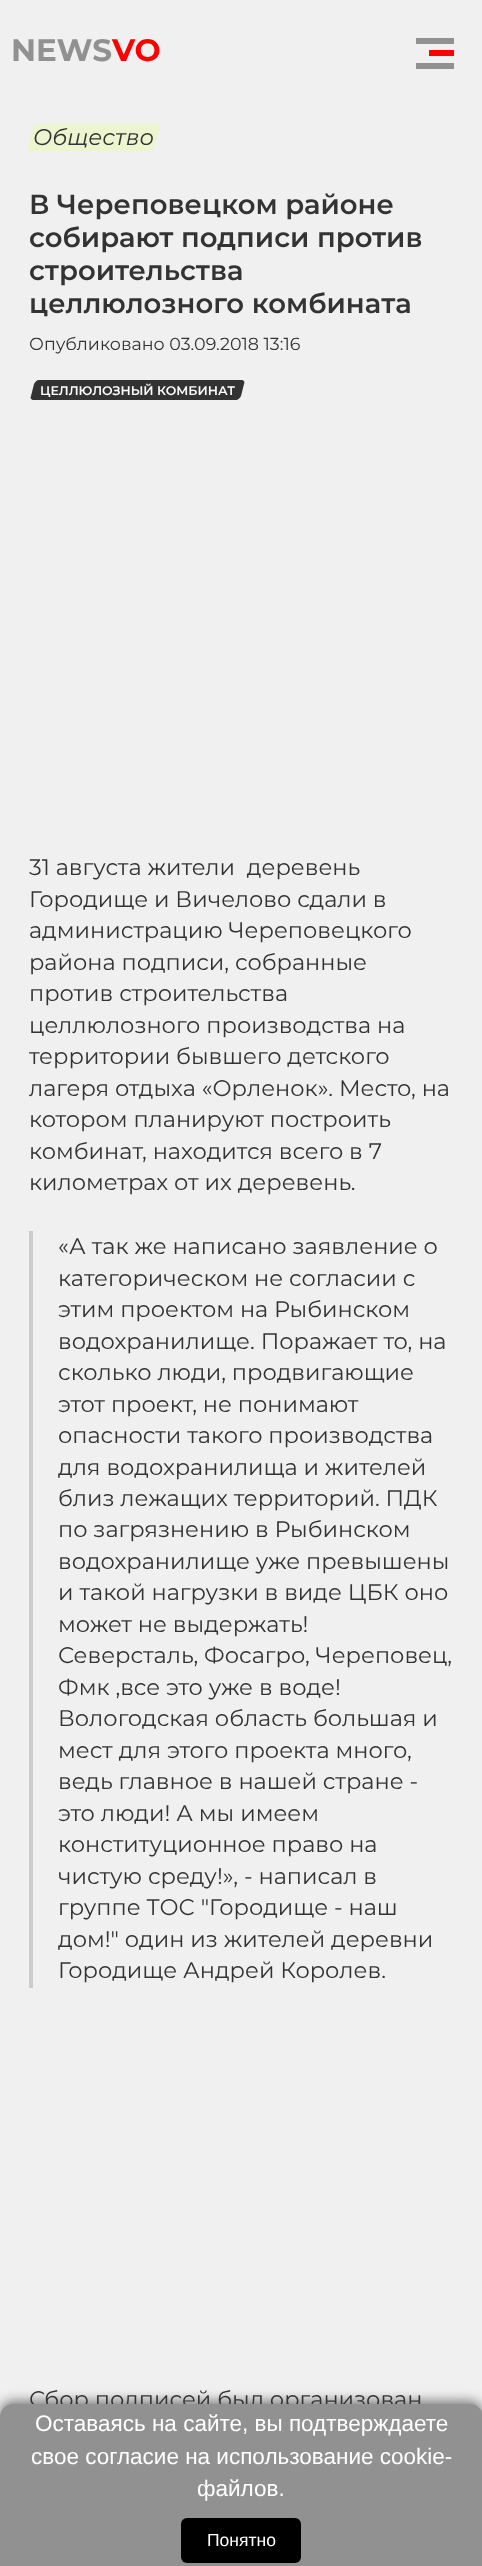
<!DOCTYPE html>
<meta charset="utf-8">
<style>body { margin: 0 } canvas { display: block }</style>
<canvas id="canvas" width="482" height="2566"></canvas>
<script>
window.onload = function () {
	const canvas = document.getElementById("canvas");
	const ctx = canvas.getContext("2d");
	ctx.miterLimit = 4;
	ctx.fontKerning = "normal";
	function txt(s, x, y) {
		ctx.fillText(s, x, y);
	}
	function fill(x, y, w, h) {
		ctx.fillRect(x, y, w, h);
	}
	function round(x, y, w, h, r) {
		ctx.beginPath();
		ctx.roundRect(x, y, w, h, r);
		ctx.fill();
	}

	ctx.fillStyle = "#F0F0F0";
	fill(0, 0, 482, 2566);
	ctx.fillStyle = "#919191";
	fill(416, 38, 38, 6);
	ctx.fillStyle = "#FF0000";
	fill(429, 50, 25, 6);
	ctx.fillStyle = "#919191";
	fill(416, 63, 38, 6);
	ctx.fillStyle = "#EDF5D0";
	ctx.beginPath();
	ctx.moveTo(37, 124);
	ctx.lineTo(157, 124);
	ctx.bezierCurveTo(159, 124, 160, 125, 160, 128);
	ctx.lineTo(154, 148);
	ctx.bezierCurveTo(154, 150, 152, 151, 150, 151);
	ctx.lineTo(30, 151);
	ctx.bezierCurveTo(28, 151, 27, 150, 27, 148);
	ctx.lineTo(33, 128);
	ctx.bezierCurveTo(33, 125, 35, 124, 37, 124);
	ctx.closePath();
	ctx.fill();
	ctx.fillStyle = "#333333";
	ctx.beginPath();
	ctx.moveTo(39, 380);
	ctx.lineTo(241, 380);
	ctx.bezierCurveTo(244, 380, 245, 382, 244, 384);
	ctx.lineTo(241, 396);
	ctx.bezierCurveTo(240, 398, 238, 400, 236, 400);
	ctx.lineTo(34, 400);
	ctx.bezierCurveTo(31, 400, 30, 398, 31, 396);
	ctx.lineTo(34, 384);
	ctx.bezierCurveTo(35, 382, 37, 380, 39, 380);
	ctx.closePath();
	ctx.fill();
	ctx.fillStyle = "#CCCCCC";
	fill(29, 1231, 4, 757);
	ctx.fillStyle = "rgba(0, 0, 0, 0.5)";
	ctx.filter = "blur(6px)";
	ctx.beginPath();
	ctx.roundRect(0, 2401, 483, 163, 13);
	ctx.fill();
	ctx.filter = "none";
	ctx.font = "bold 31px Montserrat";
	ctx.fillStyle = "#919191";
	txt("NEWS", 11, 61);
	ctx.fillStyle = "#FF0000";
	txt("VO", 112, 61);
	ctx.font = "italic 22.5px Montserrat";
	ctx.fillStyle = "#333333";
	txt("Общество", 33, 145);
	ctx.font = "600 27.5px Montserrat";
	txt("В Череповецком районе", 29, 214);
	txt("собирают подписи против", 29, 247);
	txt("строительства", 29, 280);
	txt("целлюлозного комбината", 29, 313);
	ctx.font = "17.5px Montserrat";
	txt("Опубликовано 03.09.2018 13:16", 29, 350);
	ctx.font = "600 12.5px Montserrat";
	ctx.fillStyle = "#FFFFFF";
	txt("ЦЕЛЛЮЛОЗНЫЙ КОМБИНАТ", 40, 395);
	ctx.font = "22.5px Montserrat";
	ctx.fillStyle = "#333333";
	txt("31 августа жители  деревень", 29, 875);
	txt("Городище и Вичелово сдали в", 29, 907);
	txt("администрацию Череповецкого", 29, 938);
	txt("района подписи, собранные", 29, 970);
	txt("против строительства", 29, 1001);
	txt("целлюлозного производства на", 29, 1033);
	txt("территории бывшего детского", 29, 1064);
	txt("лагеря отдыха «Орленок». Место, на", 29, 1096);
	txt("котором планируют построить", 29, 1127);
	txt("комбинат, находится всего в 7", 29, 1159);
	txt("километрах от их деревень.", 29, 1190);
	txt("«А так же написано заявление о", 58, 1254);
	txt("категорическом не согласии с", 58, 1286);
	txt("этим проектом на Рыбинском", 58, 1317);
	txt("водохранилище. Поражает то, на", 58, 1349);
	txt("сколько люди, продвигающие", 58, 1380);
	txt("этот проект, не понимают", 58, 1412);
	txt("опасности такого производства", 58, 1443);
	txt("для водохранилища и жителей", 58, 1475);
	txt("близ лежащих территорий. ПДК", 58, 1506);
	txt("по загрязнению в Рыбинском", 58, 1537);
	txt("водохранилище уже превышены", 58, 1569);
	txt("и такой нагрузки в виде ЦБК оно", 58, 1600);
	txt("может не выдержать!", 58, 1632);
	txt("Северсталь, Фосагро, Череповец,", 58, 1663);
	txt("Фмк ,все это уже в воде!", 58, 1695);
	txt("Вологодская область большая и", 58, 1726);
	txt("мест для этого проекта много,", 58, 1758);
	txt("ведь главное в нашей стране -", 58, 1789);
	txt("это люди! А мы имеем", 58, 1821);
	txt("конституционное право на", 58, 1852);
	txt("чистую среду!», - написал в", 58, 1884);
	txt("группе ТОС \"Городище - наш", 58, 1915);
	txt("дом!\" один из жителей деревни", 58, 1947);
	txt("Городище Андрей Королев.", 58, 1978);
	txt("Сбор подписей был организован", 29, 2407);
	ctx.fillStyle = "#919191";
	ctx.beginPath();
	ctx.moveTo(13, 2404);
	ctx.lineTo(470, 2404);
	ctx.bezierCurveTo(477, 2404, 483, 2410, 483, 2417);
	ctx.lineTo(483, 2566);
	ctx.lineTo(0, 2566);
	ctx.lineTo(0, 2417);
	ctx.bezierCurveTo(0, 2410, 6, 2404, 13, 2404);
	ctx.closePath();
	ctx.fill();
	ctx.font = "22.5px Liberation Sans";
	ctx.fillStyle = "#FFFFFF";
	txt("Оставаясь на сайте, вы подтверждаете", 35, 2431);
	txt("свое согласие на использование cookie-", 31, 2464);
	txt("файлов.", 197, 2496);
	ctx.fillStyle = "#000000";
	round(181, 2518, 120, 45, 6);
	ctx.font = "17.5px Liberation Sans";
	ctx.fillStyle = "#FFFFFF";
	txt("Понятно", 207, 2546);
};
</script>
